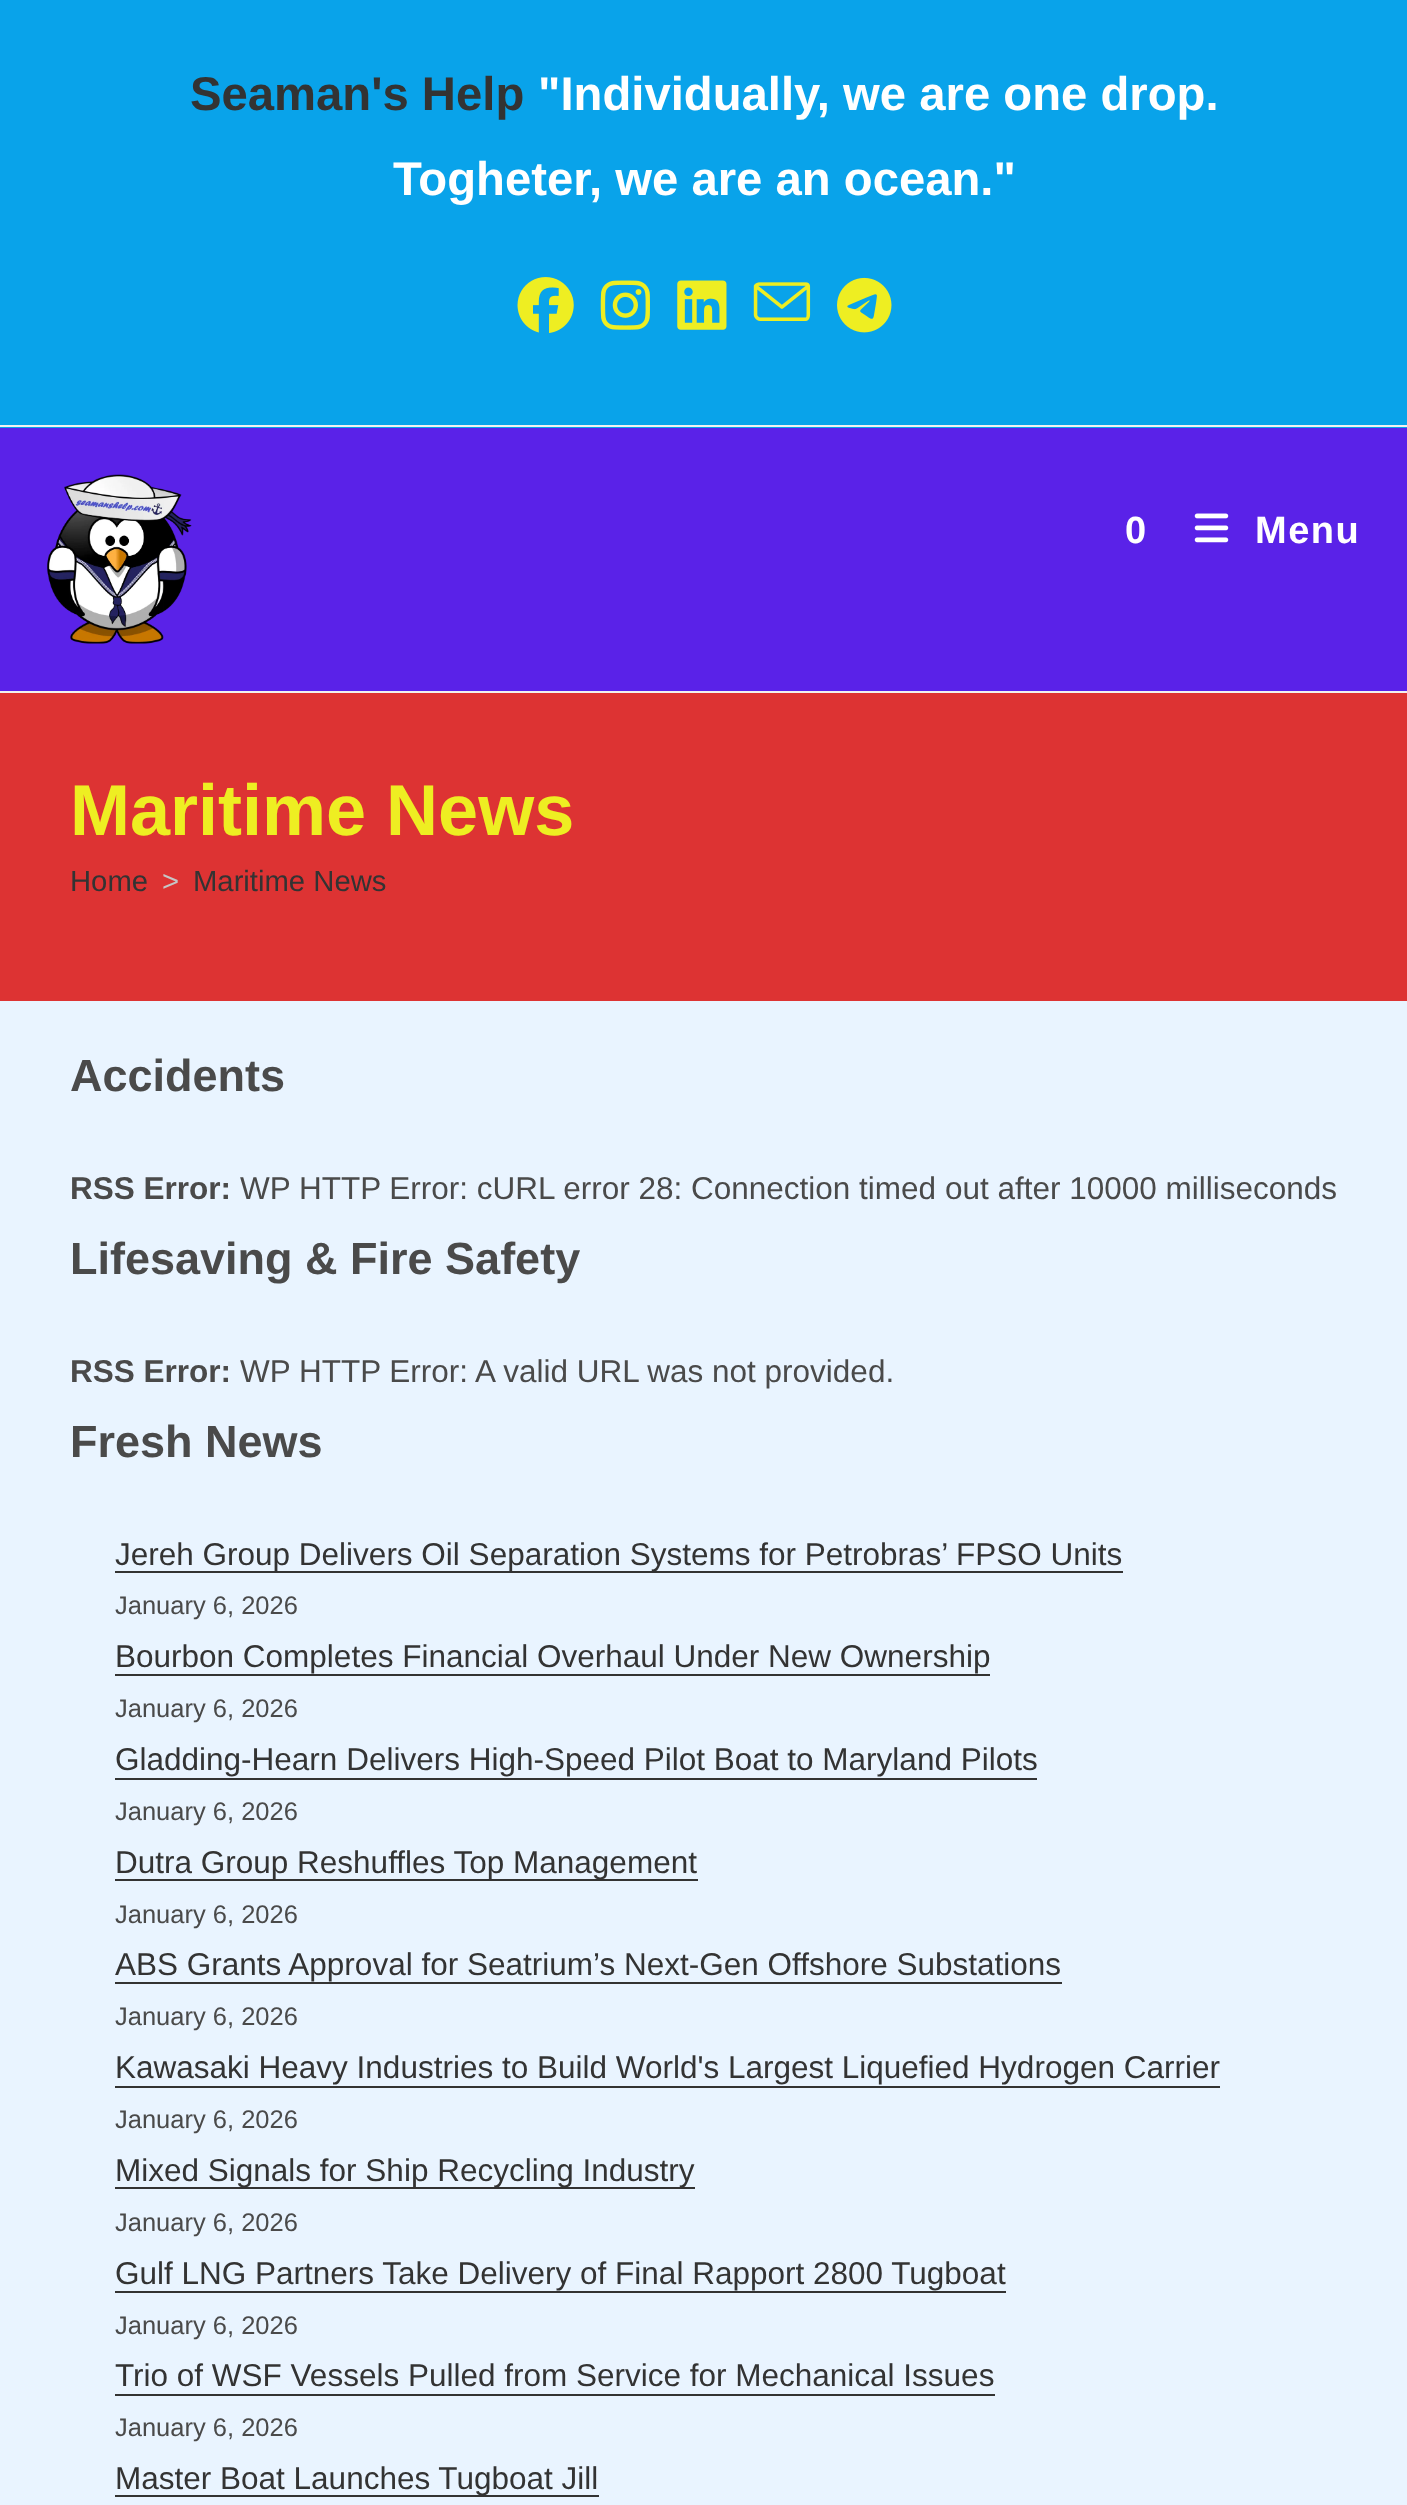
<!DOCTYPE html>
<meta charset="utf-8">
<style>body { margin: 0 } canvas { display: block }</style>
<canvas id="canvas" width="1407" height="2505"></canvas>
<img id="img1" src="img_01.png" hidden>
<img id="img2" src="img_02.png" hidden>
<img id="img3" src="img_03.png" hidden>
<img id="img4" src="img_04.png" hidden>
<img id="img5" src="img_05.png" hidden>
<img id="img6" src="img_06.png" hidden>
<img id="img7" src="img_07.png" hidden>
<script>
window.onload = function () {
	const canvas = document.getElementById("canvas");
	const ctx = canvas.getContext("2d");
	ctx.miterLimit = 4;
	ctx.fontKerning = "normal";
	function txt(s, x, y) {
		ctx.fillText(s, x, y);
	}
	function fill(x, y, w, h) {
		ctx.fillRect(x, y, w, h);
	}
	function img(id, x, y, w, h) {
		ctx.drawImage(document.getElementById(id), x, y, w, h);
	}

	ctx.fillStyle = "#E9F4FF";
	fill(0, 0, 1407, 2505);
	ctx.fillStyle = "#09A3EA";
	fill(0, 0, 1407, 428);
	ctx.fillStyle = "#F1F1F1";
	fill(0, 425, 1407, 2);
	img("img1", 517, 277, 57, 56);
	img("img2", 600, 280, 50, 50);
	img("img3", 677, 280, 50, 50);
	img("img4", 753, 282, 58, 39);
	img("img5", 837, 277, 55, 56);
	ctx.fillStyle = "#5A22E8";
	fill(0, 428, 1407, 263);
	ctx.fillStyle = "#F1F1F1";
	fill(0, 691, 1407, 2);
	img("img6", 47, 474, 145, 170);
	img("img7", 1194, 513, 35, 30);
	ctx.fillStyle = "#DD3333";
	fill(0, 693, 1407, 308);
	ctx.fillStyle = "#333333";
	fill(115, 1571, 1008, 2);
	fill(115, 1674, 875, 2);
	fill(115, 1778, 922, 2);
	fill(115, 1879, 583, 2);
	fill(115, 1982, 947, 2);
	fill(115, 2086, 1105, 2);
	fill(115, 2187, 580, 2);
	fill(115, 2291, 891, 2);
	fill(115, 2394, 880, 2);
	fill(115, 2495, 484, 2);
	ctx.font = "bold 47.25px Liberation Sans";
	txt("Seaman's Help", 190, 110);
	ctx.fillStyle = "#FFFFFF";
	txt("\"Individually, we are one drop.", 538, 110);
	txt("Togheter, we are an ocean.\"", 393, 195);
	ctx.letterSpacing = "1.5px";
	ctx.font = "bold 38px Liberation Sans";
	txt("0", 1125, 543);
	txt("Menu", 1255, 543);
	ctx.letterSpacing = "0px";
	ctx.font = "bold 72px Liberation Sans";
	ctx.fillStyle = "#EEEE22";
	txt("Maritime News", 70, 835);
	ctx.font = "29.25px Liberation Sans";
	ctx.fillStyle = "#333333";
	txt("Home", 70, 891);
	ctx.fillStyle = "#C6C6C6";
	txt(">", 162, 891);
	ctx.fillStyle = "#333333";
	txt("Maritime News", 193, 891);
	ctx.font = "bold 45px Liberation Sans";
	ctx.fillStyle = "#4A4A4A";
	txt("Accidents", 70, 1091);
	ctx.font = "bold 31.5px Liberation Sans";
	txt("RSS Error:", 70, 1199);
	ctx.font = "31.5px Liberation Sans";
	txt("WP HTTP Error: cURL error 28: Connection timed out after 10000 milliseconds", 240, 1199);
	ctx.font = "bold 45px Liberation Sans";
	txt("Lifesaving & Fire Safety", 70, 1274);
	ctx.font = "bold 31.5px Liberation Sans";
	txt("RSS Error:", 70, 1382);
	ctx.font = "31.5px Liberation Sans";
	txt("WP HTTP Error: A valid URL was not provided.", 240, 1382);
	ctx.font = "bold 45px Liberation Sans";
	txt("Fresh News", 70, 1457);
	ctx.font = "31.5px Liberation Sans";
	ctx.fillStyle = "#333333";
	txt("Jereh Group Delivers Oil Separation Systems for Petrobras’ FPSO Units", 115, 1565);
	ctx.font = "25.5px Liberation Sans";
	ctx.fillStyle = "#4A4A4A";
	txt("January 6, 2026", 115, 1614);
	ctx.font = "31.5px Liberation Sans";
	ctx.fillStyle = "#333333";
	txt("Bourbon Completes Financial Overhaul Under New Ownership", 115, 1667);
	ctx.font = "25.5px Liberation Sans";
	ctx.fillStyle = "#4A4A4A";
	txt("January 6, 2026", 115, 1717);
	ctx.font = "31.5px Liberation Sans";
	ctx.fillStyle = "#333333";
	txt("Gladding-Hearn Delivers High-Speed Pilot Boat to Maryland Pilots", 115, 1770);
	ctx.font = "25.5px Liberation Sans";
	ctx.fillStyle = "#4A4A4A";
	txt("January 6, 2026", 115, 1820);
	ctx.font = "31.5px Liberation Sans";
	ctx.fillStyle = "#333333";
	txt("Dutra Group Reshuffles Top Management", 115, 1873);
	ctx.font = "25.5px Liberation Sans";
	ctx.fillStyle = "#4A4A4A";
	txt("January 6, 2026", 115, 1923);
	ctx.font = "31.5px Liberation Sans";
	ctx.fillStyle = "#333333";
	txt("ABS Grants Approval for Seatrium’s Next-Gen Offshore Substations", 115, 1975);
	ctx.font = "25.5px Liberation Sans";
	ctx.fillStyle = "#4A4A4A";
	txt("January 6, 2026", 115, 2025);
	ctx.font = "31.5px Liberation Sans";
	ctx.fillStyle = "#333333";
	txt("Kawasaki Heavy Industries to Build World's Largest Liquefied Hydrogen Carrier", 115, 2078);
	ctx.font = "25.5px Liberation Sans";
	ctx.fillStyle = "#4A4A4A";
	txt("January 6, 2026", 115, 2128);
	ctx.font = "31.5px Liberation Sans";
	ctx.fillStyle = "#333333";
	txt("Mixed Signals for Ship Recycling Industry", 115, 2181);
	ctx.font = "25.5px Liberation Sans";
	ctx.fillStyle = "#4A4A4A";
	txt("January 6, 2026", 115, 2231);
	ctx.font = "31.5px Liberation Sans";
	ctx.fillStyle = "#333333";
	txt("Gulf LNG Partners Take Delivery of Final Rapport 2800 Tugboat", 115, 2284);
	ctx.font = "25.5px Liberation Sans";
	ctx.fillStyle = "#4A4A4A";
	txt("January 6, 2026", 115, 2334);
	ctx.font = "31.5px Liberation Sans";
	ctx.fillStyle = "#333333";
	txt("Trio of WSF Vessels Pulled from Service for Mechanical Issues", 115, 2386);
	ctx.font = "25.5px Liberation Sans";
	ctx.fillStyle = "#4A4A4A";
	txt("January 6, 2026", 115, 2436);
	ctx.font = "31.5px Liberation Sans";
	ctx.fillStyle = "#333333";
	txt("Master Boat Launches Tugboat Jill", 115, 2489);
};
</script>
